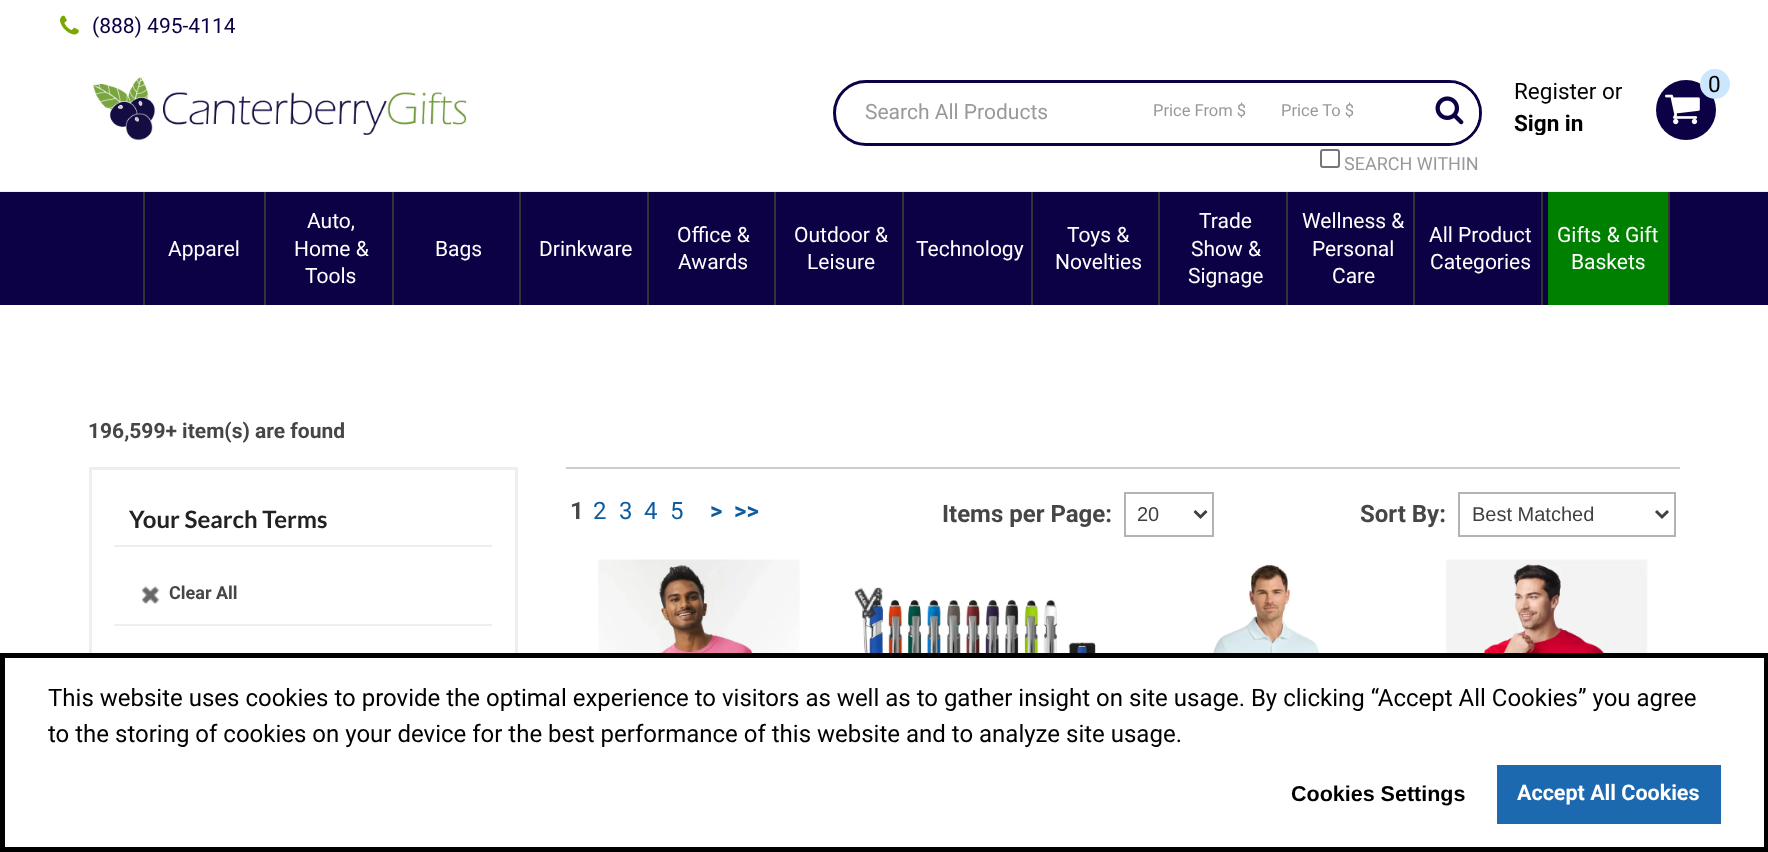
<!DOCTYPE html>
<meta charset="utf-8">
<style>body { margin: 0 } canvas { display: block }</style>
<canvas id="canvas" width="1768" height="852"></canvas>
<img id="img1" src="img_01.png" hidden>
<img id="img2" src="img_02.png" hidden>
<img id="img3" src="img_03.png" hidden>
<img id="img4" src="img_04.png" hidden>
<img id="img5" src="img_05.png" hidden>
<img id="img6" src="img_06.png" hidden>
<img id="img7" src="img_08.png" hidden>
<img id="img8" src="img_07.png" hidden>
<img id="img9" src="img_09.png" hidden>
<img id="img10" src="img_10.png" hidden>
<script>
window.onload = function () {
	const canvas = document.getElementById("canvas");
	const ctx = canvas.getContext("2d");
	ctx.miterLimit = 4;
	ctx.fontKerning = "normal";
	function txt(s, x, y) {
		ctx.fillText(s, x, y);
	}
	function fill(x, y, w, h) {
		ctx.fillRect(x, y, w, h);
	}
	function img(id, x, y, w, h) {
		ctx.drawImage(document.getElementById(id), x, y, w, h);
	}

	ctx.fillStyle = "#FFFFFF";
	fill(0, 0, 1768, 852);
	img("img1", 60, 15, 19, 20);
	ctx.fillStyle = "#EEEEEE";
	fill(0, 191, 1768, 1);
	img("img2", 92, 77, 375, 64);
	ctx.beginPath();
	ctx.roundRect(834.5, 81.5, 646, 63, 31.5);
	ctx.strokeStyle = "#0D0145";
	ctx.lineWidth = 3;
	ctx.stroke();
	ctx.fillStyle = "#FFFFFF";
	ctx.beginPath();
	ctx.arc(1449, 113, 30, 0, Math.PI * 2);
	ctx.fill();
	img("img3", 1435, 96, 29, 29);
	ctx.beginPath();
	ctx.roundRect(1321, 150, 18, 17, 2);
	ctx.strokeStyle = "#767676";
	ctx.lineWidth = 2;
	ctx.stroke();
	ctx.fillStyle = "#0D0145";
	ctx.beginPath();
	ctx.arc(1686, 110, 30, 0, Math.PI * 2);
	ctx.fill();
	ctx.fillStyle = "#CBE6FD";
	ctx.beginPath();
	ctx.arc(1715, 84, 15, 0, Math.PI * 2);
	ctx.fill();
	img("img4", 1665, 94, 35, 31);
	ctx.fillStyle = "#0D0145";
	fill(0, 192, 1768, 113);
	ctx.fillStyle = "#343434";
	fill(143, 192, 2, 113);
	fill(264, 192, 2, 113);
	fill(392, 192, 2, 113);
	fill(519, 192, 2, 113);
	fill(647, 192, 2, 113);
	fill(774, 192, 2, 113);
	fill(902, 192, 2, 113);
	fill(1031, 192, 2, 113);
	fill(1158, 192, 2, 113);
	fill(1286, 192, 2, 113);
	fill(1413, 192, 2, 113);
	fill(1541, 192, 2, 113);
	ctx.fillStyle = "#008000";
	fill(1548, 192, 120, 113);
	ctx.fillStyle = "#343434";
	fill(1668, 192, 2, 113);
	ctx.strokeStyle = "#EEEEEE";
	ctx.lineWidth = 3;
	ctx.strokeRect(90.5, 468.5, 426, 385);
	ctx.fillStyle = "#EEEEEE";
	fill(114, 545, 378, 2);
	img("img5", 142, 586, 18, 18);
	fill(114, 624, 378, 2);
	ctx.fillStyle = "#CCCCCC";
	fill(566, 467, 1114, 2);
	ctx.strokeStyle = "#B3B3B3";
	ctx.lineWidth = 2;
	ctx.strokeRect(1125, 493, 88, 43);
	ctx.beginPath();
	ctx.moveTo(1194.5, 511);
	ctx.lineTo(1200.5, 517);
	ctx.lineTo(1206.5, 511);
	ctx.strokeStyle = "#404040";
	ctx.lineWidth = 3;
	ctx.stroke();
	ctx.strokeStyle = "#B3B3B3";
	ctx.lineWidth = 2;
	ctx.strokeRect(1459, 493, 216, 43);
	ctx.beginPath();
	ctx.moveTo(1656, 511);
	ctx.lineTo(1662, 517);
	ctx.lineTo(1668, 511);
	ctx.strokeStyle = "#404040";
	ctx.lineWidth = 3;
	ctx.stroke();
	img("img6", 598, 559, 202, 94);
	img("img7", 863, 599, 234, 54);
	img("img8", 854, 587, 29, 32);
	img("img9", 1201, 564, 128, 89);
	img("img10", 1446, 559, 202, 94);
	ctx.fillStyle = "#FFFFFF";
	fill(89, 658, 429, 189);
	ctx.strokeStyle = "#000000";
	ctx.lineWidth = 5;
	ctx.strokeRect(2.5, 655.5, 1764, 194);
	ctx.fillStyle = "#1C69AF";
	fill(1497, 765, 224, 59);
	ctx.font = "21px Roboto";
	ctx.fillStyle = "#0D0145";
	txt("(888) 495-4114", 92, 33);
	ctx.fillStyle = "#999999";
	txt("Search All Products", 865, 119);
	ctx.font = "16.5px Roboto";
	txt("Price From $", 1153, 116);
	txt("Price To $", 1281, 116);
	ctx.font = "18px Roboto";
	txt("SEARCH WITHIN", 1344, 170);
	ctx.font = "22.5px Roboto";
	ctx.fillStyle = "#000000";
	txt("Register or", 1514, 99);
	ctx.save();
	ctx.beginPath();
	ctx.rect(1508, 80, 148, 55);
	ctx.clip();
	ctx.font = "bold 22.5px Roboto";
	txt("Sign in", 1514, 131);
	ctx.restore();
	txt("0", 1708, 92);
	ctx.font = "21px Roboto";
	ctx.fillStyle = "#FFFFFF";
	txt("Apparel", 168, 256);
	txt("Auto,", 307, 228);
	txt("Home &", 294, 256);
	txt("Tools", 305, 283);
	txt("Bags", 435, 256);
	txt("Drinkware", 539, 256);
	txt("Office &", 677, 242);
	txt("Awards", 678, 269);
	txt("Outdoor &", 794, 242);
	txt("Leisure", 807, 269);
	txt("Technology", 916, 256);
	txt("Toys &", 1067, 242);
	txt("Novelties", 1055, 269);
	txt("Trade", 1199, 228);
	txt("Show &", 1191, 256);
	txt("Signage", 1188, 283);
	txt("Wellness &", 1302, 228);
	txt("Personal", 1312, 256);
	txt("Care", 1332, 283);
	txt("All Product", 1429, 242);
	txt("Categories", 1430, 269);
	txt("Gifts & Gift", 1557, 242);
	txt("Baskets", 1571, 269);
	ctx.font = "bold 21px Roboto";
	ctx.fillStyle = "#464646";
	txt("196,599+ item(s) are found", 88, 438);
	ctx.font = "bold 24px Lato";
	ctx.fillStyle = "#222222";
	txt("Your Search Terms", 129, 528);
	ctx.font = "bold 18px Roboto";
	ctx.fillStyle = "#464646";
	txt("Clear All", 169, 599);
	ctx.font = "bold 24px Roboto";
	txt("1", 570, 519);
	ctx.font = "24px Roboto";
	ctx.fillStyle = "#0E5BA0";
	txt("2", 593, 519);
	txt("3", 619, 519);
	txt("4", 644, 519);
	txt("5", 670, 519);
	ctx.font = "bold 24px Roboto";
	txt(">", 710, 519);
	txt(">>", 734, 519);
	ctx.fillStyle = "#464646";
	txt("Items per Page:", 942, 522);
	ctx.font = "20px Liberation Sans";
	ctx.fillStyle = "#404040";
	txt("20", 1137, 521);
	ctx.font = "bold 24px Roboto";
	ctx.fillStyle = "#464646";
	txt("Sort By:", 1360, 522);
	ctx.font = "20px Liberation Sans";
	ctx.fillStyle = "#404040";
	txt("Best Matched", 1472, 521);
	ctx.font = "24px Roboto";
	ctx.fillStyle = "#000000";
	txt("This website uses cookies to provide the optimal experience to visitors as well as to gather insight on site usage. By clicking “Accept All Cookies” you agree", 48, 706);
	txt("to the storing of cookies on your device for the best performance of this website and to analyze site usage.", 48, 742);
	ctx.font = "bold 21.5px Liberation Sans";
	txt("Cookies Settings", 1291, 801);
	ctx.font = "bold 21.5px Roboto";
	ctx.fillStyle = "#FFFFFF";
	txt("Accept All Cookies", 1517, 800);
};
</script>
